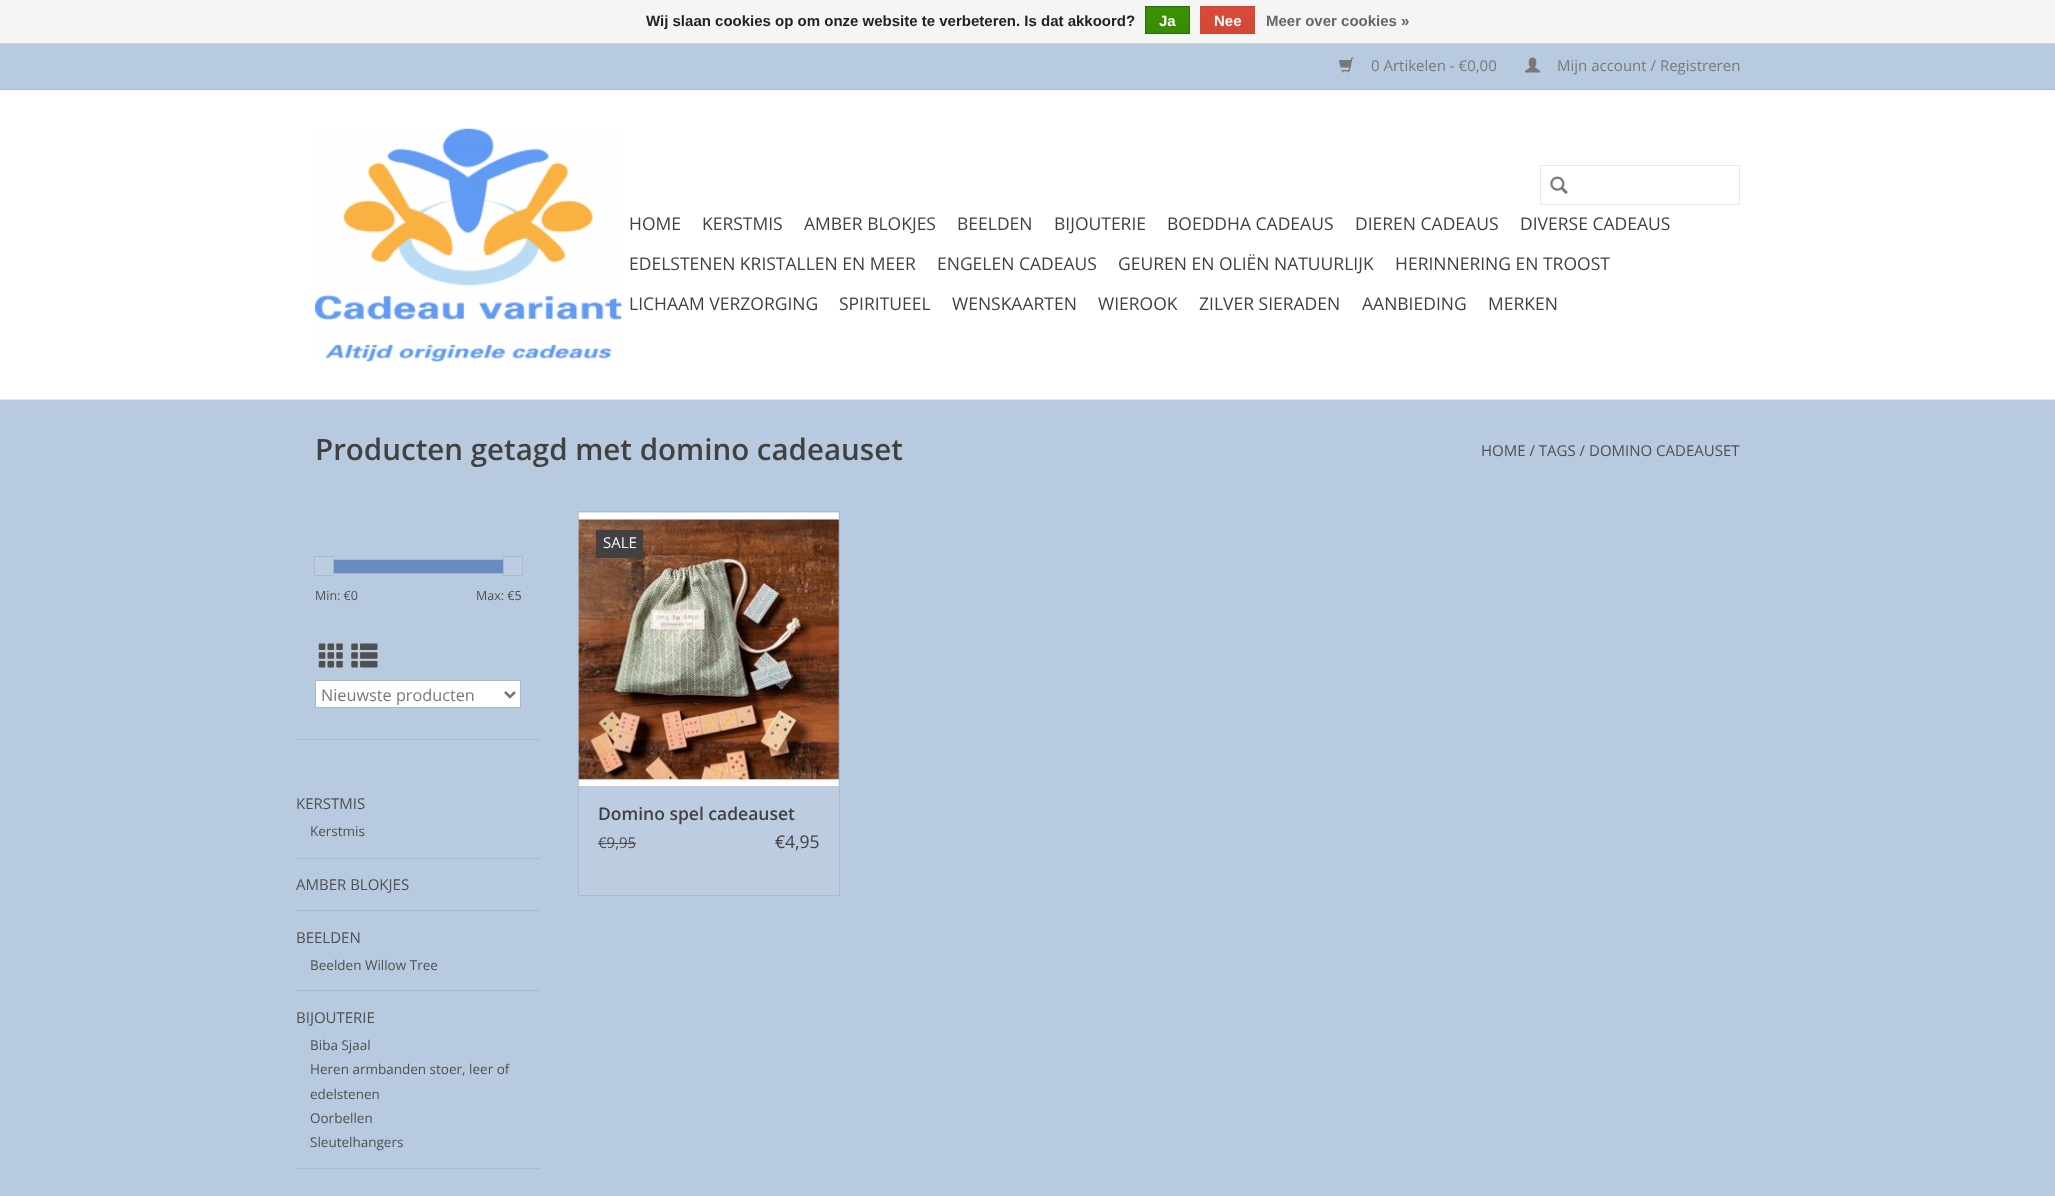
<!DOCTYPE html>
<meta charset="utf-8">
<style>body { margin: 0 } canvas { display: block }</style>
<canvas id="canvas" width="2055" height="1196"></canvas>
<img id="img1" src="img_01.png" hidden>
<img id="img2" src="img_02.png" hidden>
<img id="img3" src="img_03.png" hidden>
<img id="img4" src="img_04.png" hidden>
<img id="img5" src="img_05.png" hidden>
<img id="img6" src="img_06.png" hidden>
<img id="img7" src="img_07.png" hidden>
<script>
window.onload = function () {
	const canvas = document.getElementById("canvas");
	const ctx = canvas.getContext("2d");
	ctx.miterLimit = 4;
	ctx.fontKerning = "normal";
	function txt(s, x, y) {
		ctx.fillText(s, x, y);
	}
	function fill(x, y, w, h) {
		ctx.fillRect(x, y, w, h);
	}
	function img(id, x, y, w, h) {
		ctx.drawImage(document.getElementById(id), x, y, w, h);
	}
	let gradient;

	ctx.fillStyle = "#B8CADF";
	fill(0, 0, 2055, 1196);
	ctx.fillStyle = "#F5F5F5";
	fill(0, 0, 2055, 43);
	ctx.fillStyle = "#CCCCCC";
	fill(0, 43, 2055, 1);
	gradient = ctx.createLinearGradient(1168, -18, 1168, 7.5);
	gradient.addColorStop(0, "#3C9300");
	gradient.addColorStop(1, "#398A00");
	ctx.fillStyle = gradient;
	fill(1145, 7, 45, 1);
	gradient = ctx.createLinearGradient(1168, 7.5, 1168, 33);
	gradient.addColorStop(0, "#3C9300");
	gradient.addColorStop(1, "#398A00");
	ctx.fillStyle = gradient;
	fill(1146, 8, 43, 25);
	ctx.strokeStyle = "#29691D";
	ctx.strokeRect(1145.5, 6.5, 44, 27);
	gradient = ctx.createLinearGradient(1228, -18, 1228, 7.5);
	gradient.addColorStop(0, "#DC4A38");
	gradient.addColorStop(1, "#D14836");
	ctx.fillStyle = gradient;
	fill(1200, 7, 55, 1);
	gradient = ctx.createLinearGradient(1228, 7.5, 1228, 33);
	gradient.addColorStop(0, "#DC4A38");
	gradient.addColorStop(1, "#D14836");
	ctx.fillStyle = gradient;
	fill(1201, 8, 53, 25);
	ctx.strokeStyle = "#D14836";
	ctx.strokeRect(1200.5, 6.5, 54, 27);
	ctx.fillStyle = "#FFFFFF";
	fill(0, 90, 2055, 309);
	ctx.fillStyle = "#EAEAEA";
	fill(0, 399, 2055, 1);
	ctx.fillStyle = "#ABBBCF";
	fill(0, 89, 2055, 1);
	img("img1", 1339, 57, 15, 16);
	img("img2", 1525, 57, 15, 16);
	img("img3", 315, 128, 307, 234);
	ctx.strokeStyle = "#EAEAEA";
	ctx.strokeRect(1540.5, 165.5, 199, 39);
	img("img4", 1550, 176, 18, 18);
	ctx.fillStyle = "#A9B9CD";
	fill(296, 739, 244, 1);
	ctx.fillStyle = "#698CC0";
	fill(334, 560, 169, 13);
	ctx.strokeStyle = "#A9B9CD";
	ctx.strokeRect(325.5, 559.5, 188, 14);
	ctx.fillStyle = "#BCCDE1";
	ctx.beginPath();
	ctx.rect(314.5, 556.5, 19, 19);
	ctx.fill();
	ctx.stroke();
	ctx.beginPath();
	ctx.rect(503.5, 556.5, 19, 19);
	ctx.fill();
	ctx.stroke();
	img("img5", 318, 643, 25, 25);
	img("img6", 351, 643, 27, 25);
	ctx.fillStyle = "#FFFFFF";
	ctx.beginPath();
	ctx.rect(315.5, 680.5, 205, 27);
	ctx.fill();
	ctx.stroke();
	ctx.beginPath();
	ctx.moveTo(505, 692);
	ctx.lineTo(510, 697);
	ctx.lineTo(515, 692);
	ctx.strokeStyle = "#777777";
	ctx.lineWidth = 2.5;
	ctx.stroke();
	ctx.fillStyle = "#A9B9CD";
	fill(296, 858, 244, 1);
	fill(296, 910, 244, 1);
	fill(296, 990, 244, 1);
	fill(296, 1168, 244, 1);
	ctx.fillStyle = "#B2C3D8";
	fill(579, 512, 260, 274);
	ctx.fillStyle = "#A9B9CD";
	fill(578, 511, 262, 1);
	fill(839, 511, 1, 275);
	fill(578, 511, 1, 275);
	ctx.fillStyle = "#BCCDE1";
	ctx.beginPath();
	ctx.rect(578.5, 786.5, 261, 109);
	ctx.fill();
	ctx.strokeStyle = "#A9B9CD";
	ctx.lineWidth = 1;
	ctx.stroke();
	img("img7", 578, 512, 261, 275);
	ctx.fillStyle = "#414141";
	fill(596, 530, 47, 28);
	ctx.fillStyle = "#505050";
	fill(598, 843, 38, 1);
	ctx.font = "bold 15px Liberation Sans";
	ctx.fillStyle = "#222222";
	txt("Wij slaan cookies op om onze website te verbeteren. Is dat akkoord?", 646, 26);
	ctx.fillStyle = "#FFFFFF";
	txt("Ja", 1159, 26);
	txt("Nee", 1214, 26);
	ctx.fillStyle = "#666666";
	txt("Meer over cookies »", 1266, 26);
	ctx.font = "15px Open Sans";
	ctx.fillStyle = "#797979";
	txt("0 Artikelen - €0,00", 1371, 71);
	txt("Mijn account / Registreren", 1557, 71);
	ctx.font = "17.5px Open Sans";
	ctx.fillStyle = "#414141";
	txt("HOME", 629, 230);
	txt("KERSTMIS", 702, 230);
	txt("AMBER BLOKJES", 804, 230);
	txt("BEELDEN", 957, 230);
	txt("BIJOUTERIE", 1054, 230);
	txt("BOEDDHA CADEAUS", 1167, 230);
	txt("DIEREN CADEAUS", 1355, 230);
	txt("DIVERSE CADEAUS", 1520, 230);
	txt("EDELSTENEN KRISTALLEN EN MEER", 629, 270);
	txt("ENGELEN CADEAUS", 937, 270);
	txt("GEUREN EN OLIËN NATUURLIJK", 1118, 270);
	txt("HERINNERING EN TROOST", 1395, 270);
	txt("LICHAAM VERZORGING", 629, 310);
	txt("SPIRITUEEL", 839, 310);
	txt("WENSKAARTEN", 952, 310);
	txt("WIEROOK", 1098, 310);
	txt("ZILVER SIERADEN", 1199, 310);
	txt("AANBIEDING", 1362, 310);
	txt("MERKEN", 1488, 310);
	ctx.font = "600 29.5px Open Sans";
	txt("Producten getagd met domino cadeauset", 315, 460);
	ctx.font = "15px Open Sans";
	ctx.fillStyle = "#505050";
	txt("HOME / TAGS / DOMINO CADEAUSET", 1481, 456);
	ctx.font = "12.5px Open Sans";
	txt("Min: €0", 315, 600);
	txt("Max: €5", 476, 600);
	ctx.font = "16.25px Open Sans";
	ctx.fillStyle = "#797979";
	txt("Nieuwste producten", 321, 701);
	ctx.font = "15px Open Sans";
	ctx.fillStyle = "#505050";
	txt("KERSTMIS", 296, 809);
	ctx.font = "13.5px Open Sans";
	txt("Kerstmis", 310, 836);
	ctx.font = "15px Open Sans";
	txt("AMBER BLOKJES", 296, 890);
	txt("BEELDEN", 296, 943);
	ctx.font = "13.5px Open Sans";
	txt("Beelden Willow Tree", 310, 970);
	ctx.font = "15px Open Sans";
	txt("BIJOUTERIE", 296, 1023);
	ctx.font = "13.5px Open Sans";
	txt("Biba Sjaal", 310, 1050);
	txt("Heren armbanden stoer, leer of", 310, 1074);
	txt("edelstenen", 310, 1099);
	txt("Oorbellen", 310, 1123);
	txt("Sleutelhangers", 310, 1147);
	ctx.font = "15px Open Sans";
	ctx.fillStyle = "#F7F7F7";
	txt("SALE", 603, 548);
	ctx.font = "600 17.5px Open Sans";
	ctx.fillStyle = "#414141";
	txt("Domino spel cadeauset", 598, 820);
	ctx.font = "15px Open Sans";
	ctx.fillStyle = "#505050";
	txt("€9,95", 598, 848);
	ctx.font = "17.5px Open Sans";
	ctx.fillStyle = "#414141";
	txt("€4,95", 775, 848);
};
</script>
